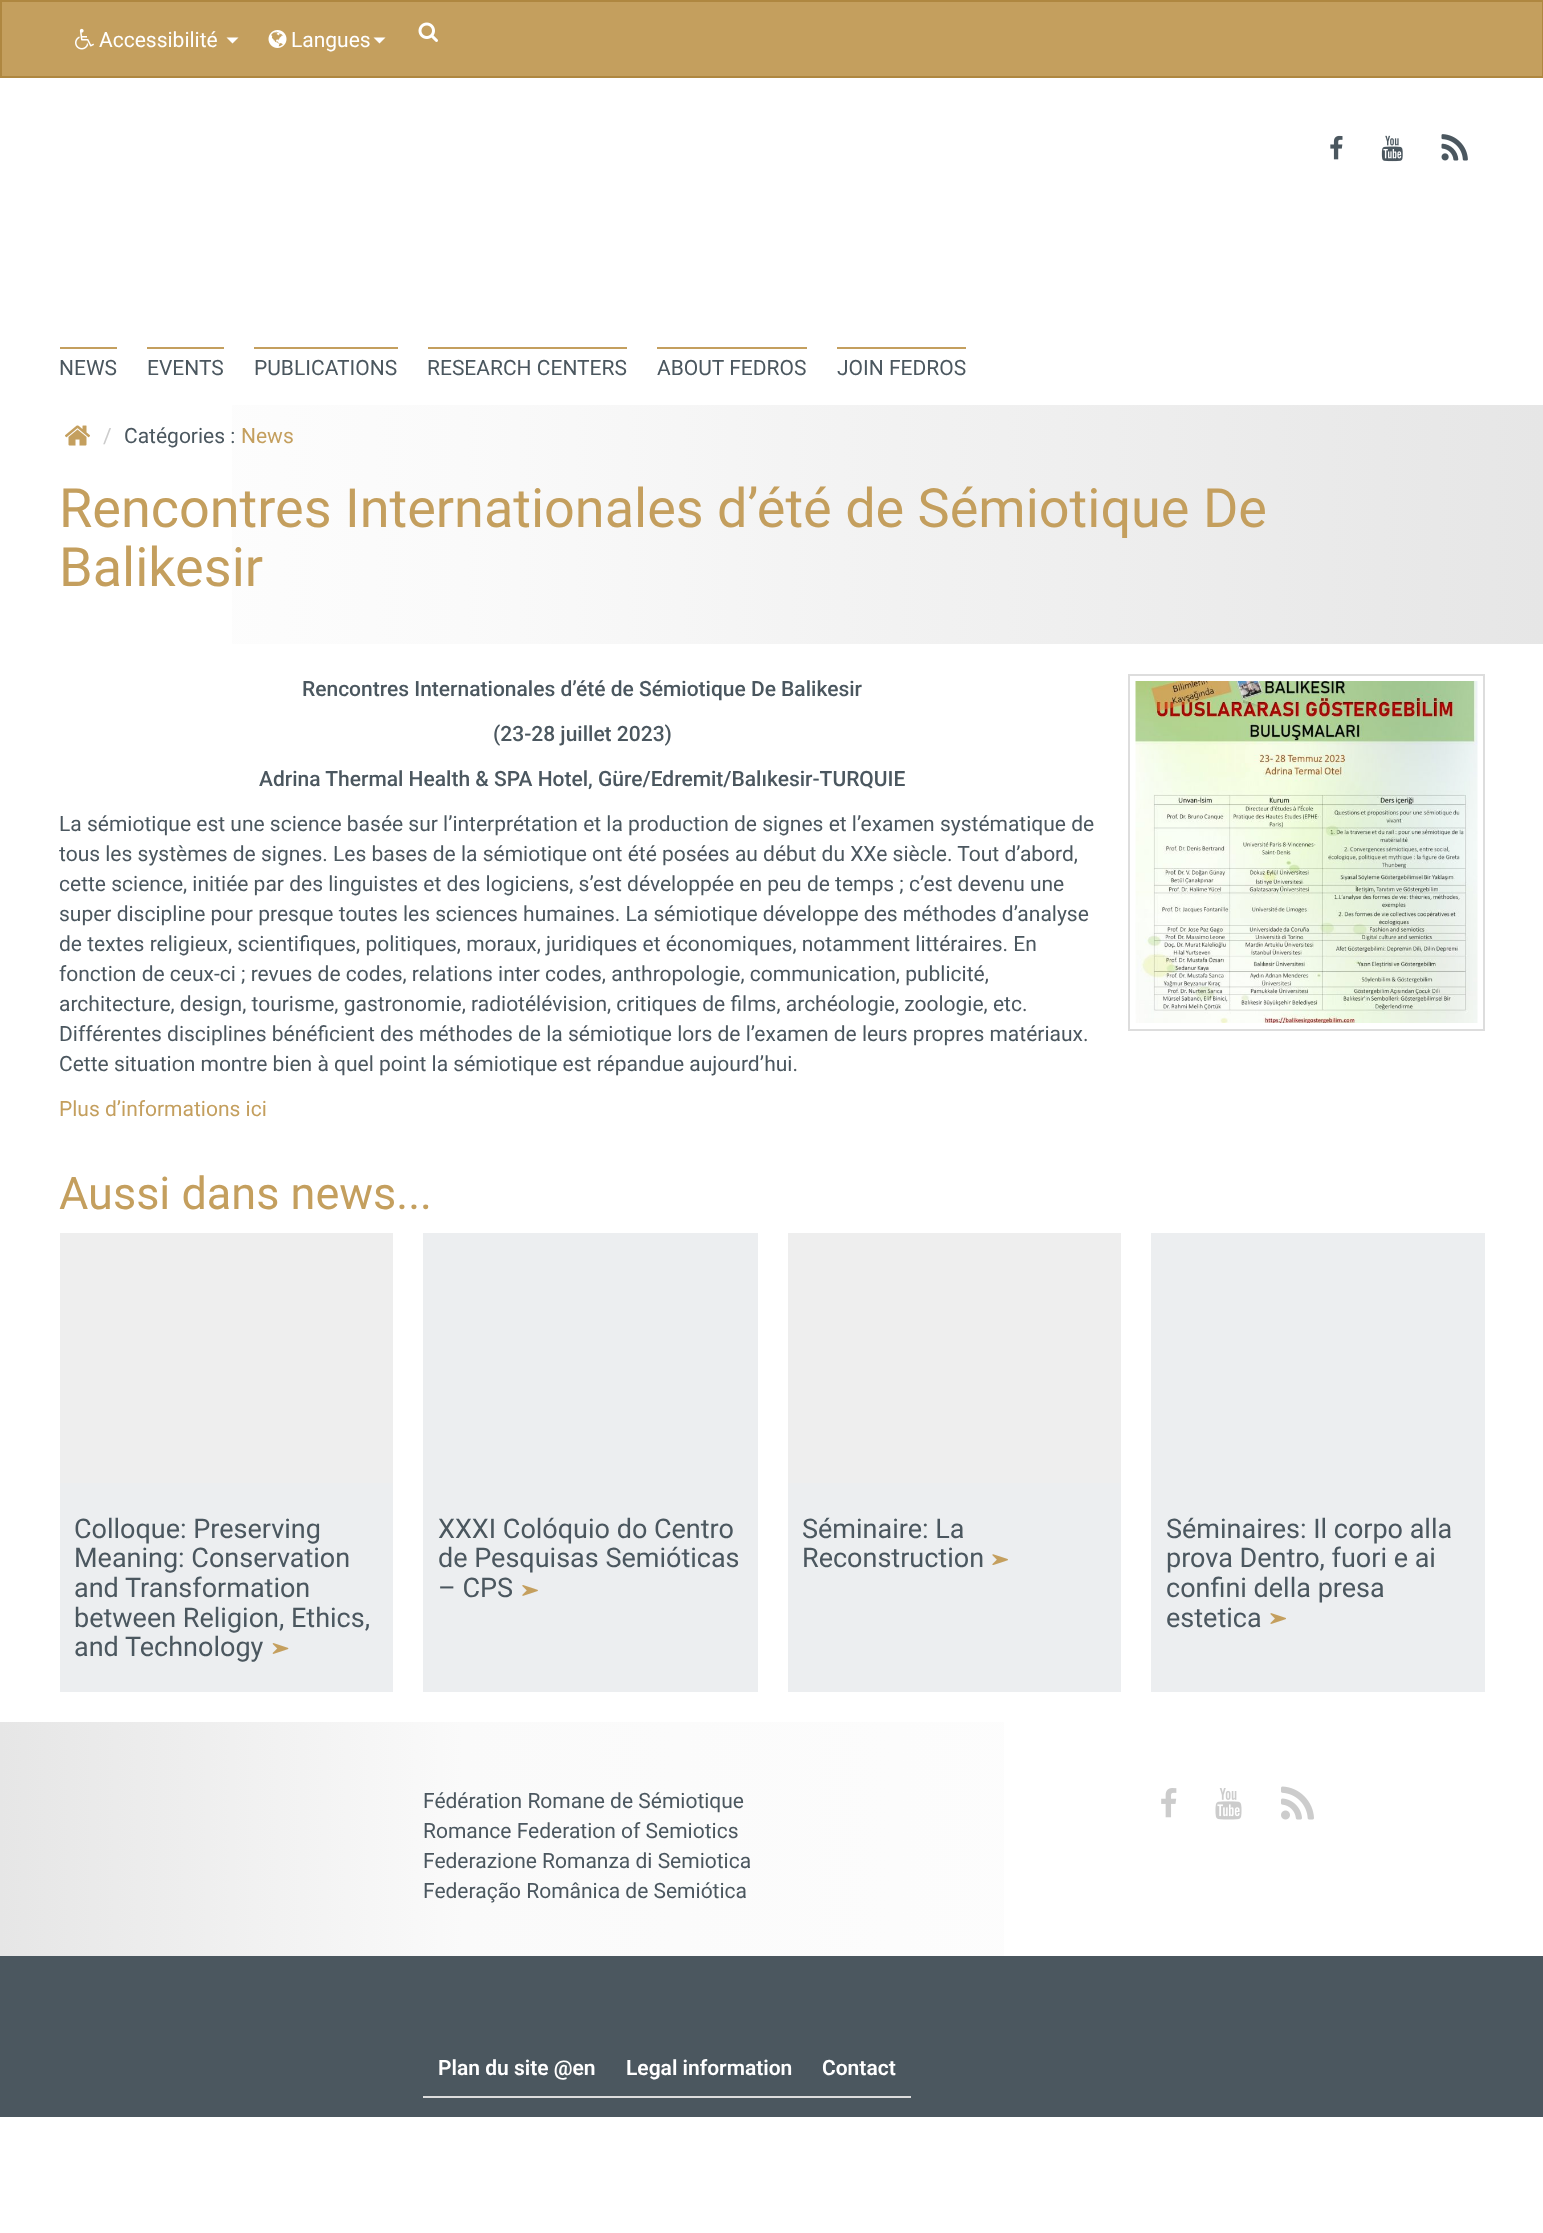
<!DOCTYPE html>
<meta charset="utf-8">
<style>body { margin: 0 } canvas { display: block }</style>
<canvas id="canvas" width="1543" height="2233"></canvas>
<img id="img1" src="img_01.png" hidden>
<img id="img2" src="img_02.png" hidden>
<img id="img3" src="img_03.png" hidden>
<img id="img4" src="img_04.png" hidden>
<img id="img5" src="img_05.png" hidden>
<img id="img6" src="img_06.png" hidden>
<img id="img7" src="img_07.png" hidden>
<img id="img8" src="img_08.png" hidden>
<img id="img9" src="img_09.png" hidden>
<img id="img10" src="img_10.png" hidden>
<img id="img11" src="img_11.png" hidden>
<img id="img12" src="img_12.png" hidden>
<img id="img13" src="img_13.png" hidden>
<img id="img14" src="img_14.png" hidden>
<img id="img15" src="img_15.png" hidden>
<script>
window.onload = function () {
	const canvas = document.getElementById("canvas");
	const ctx = canvas.getContext("2d");
	ctx.miterLimit = 4;
	ctx.fontKerning = "normal";
	function txt(s, x, y) {
		ctx.fillText(s, x, y);
	}
	function fill(x, y, w, h) {
		ctx.fillRect(x, y, w, h);
	}
	function img(id, x, y, w, h) {
		ctx.drawImage(document.getElementById(id), x, y, w, h);
	}
	let gradient;

	ctx.fillStyle = "#FFFFFF";
	fill(0, 0, 1543, 2233);
	ctx.fillStyle = "#C49F5E";
	ctx.beginPath();
	ctx.rect(1, 1, 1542, 76);
	ctx.fill();
	ctx.strokeStyle = "#AF8740";
	ctx.lineWidth = 2;
	ctx.stroke();
	img("img1", 75, 28, 19, 22);
	ctx.fillStyle = "#FFFFFF";
	ctx.beginPath();
	ctx.moveTo(226.5, 37.5);
	ctx.lineTo(238.5, 37.5);
	ctx.lineTo(232.5, 43.5);
	ctx.closePath();
	ctx.fill();
	img("img2", 268, 30, 19, 18);
	ctx.beginPath();
	ctx.moveTo(373.5, 37.5);
	ctx.lineTo(385.5, 37.5);
	ctx.lineTo(379.5, 43.5);
	ctx.closePath();
	ctx.fill();
	img("img3", 418, 22, 20, 20);
	img("img4", 1330, 135, 13, 25);
	img("img5", 1381, 135, 22, 27);
	img("img6", 1441, 134, 27, 27);
	ctx.fillStyle = "#C49F5E";
	fill(60, 347, 57, 2);
	fill(147, 347, 77, 2);
	fill(254, 347, 144, 2);
	fill(428, 347, 199, 2);
	fill(657, 347, 150, 2);
	fill(837, 347, 129, 2);
	gradient = ctx.createLinearGradient(0, 524, 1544, 524);
	gradient.addColorStop(0, "#FFFFFF");
	gradient.addColorStop(0.3, "#FAFAFA");
	gradient.addColorStop(1, "#E6E6E6");
	ctx.fillStyle = gradient;
	fill(232, 405, 1311, 239);
	img("img7", 65, 425, 25, 21);
	ctx.strokeStyle = "#DDDDDD";
	ctx.strokeRect(1129, 675, 355, 355);
	img("img8", 1135, 681, 343, 342);
	ctx.fillStyle = "#ECEEF0";
	fill(60, 1483, 333, 209);
	ctx.fillStyle = "#EEEEEE";
	fill(60, 1233, 333, 250);
	img("img9", 272, 1643, 17, 11);
	ctx.fillStyle = "#ECEEF0";
	fill(423, 1233, 335, 459);
	img("img10", 522, 1585, 16, 11);
	fill(788, 1483, 333, 209);
	ctx.fillStyle = "#EEEEEE";
	fill(788, 1233, 333, 250);
	img("img11", 992, 1554, 16, 11);
	ctx.fillStyle = "#ECEEF0";
	fill(1151, 1233, 334, 459);
	img("img12", 1270, 1613, 16, 11);
	gradient = ctx.createLinearGradient(0, 1839, 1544, 1839);
	gradient.addColorStop(0, "#E6E6E6");
	gradient.addColorStop(0.3, "#FAFAFA");
	gradient.addColorStop(1, "#FFFFFF");
	ctx.fillStyle = gradient;
	fill(0, 1722, 1004, 234);
	img("img13", 1161, 1788, 16, 30);
	img("img14", 1215, 1788, 27, 32);
	img("img15", 1281, 1786, 33, 34);
	ctx.fillStyle = "#4B575F";
	fill(0, 1956, 1543, 161);
	ctx.fillStyle = "#DDDDDD";
	fill(423, 2096, 488, 2);
	ctx.font = "21px Roboto";
	ctx.fillStyle = "#FFFFFF";
	txt("Accessibilité", 99, 47);
	txt("Langues", 291, 47);
	ctx.fillStyle = "#4B575F";
	txt("NEWS", 59, 375);
	txt("EVENTS", 147, 375);
	txt("PUBLICATIONS", 254, 375);
	txt("RESEARCH CENTERS", 427, 375);
	txt("ABOUT FEDROS", 657, 375);
	txt("JOIN FEDROS", 837, 375);
	ctx.fillStyle = "#CCCCCC";
	txt("/", 103, 443);
	ctx.fillStyle = "#4B575F";
	txt("Catégories :", 124, 443);
	ctx.fillStyle = "#C49F5E";
	txt("News", 241, 443);
	ctx.font = "54px Roboto";
	txt("Rencontres Internationales d’été de Sémiotique De", 59, 527);
	txt("Balikesir", 59, 586);
	ctx.font = "500 21px Roboto";
	ctx.fillStyle = "#4B575F";
	txt("Rencontres Internationales d’été de Sémiotique De Balikesir", 302, 696);
	txt("(23-28 juillet 2023)", 493, 741);
	txt("Adrina Thermal Health & SPA Hotel, Güre/Edremit/Balıkesir-TURQUIE", 259, 786);
	ctx.font = "21px Roboto";
	txt("La sémiotique est une science basée sur l’interprétation et la production de signes et l’examen systématique de", 59, 831);
	txt("tous les systèmes de signes. Les bases de la sémiotique ont été posées au début du XXe siècle. Tout d’abord,", 59, 861);
	txt("cette science, initiée par des linguistes et des logiciens, s’est développée en peu de temps ; c’est devenu une", 59, 891);
	txt("super discipline pour presque toutes les sciences humaines. La sémiotique développe des méthodes d’analyse", 59, 921);
	txt("de textes religieux, scientifiques, politiques, moraux, juridiques et économiques, notamment littéraires. En", 59, 951);
	txt("fonction de ceux-ci ; revues de codes, relations inter codes, anthropologie, communication, publicité,", 59, 981);
	txt("architecture, design, tourisme, gastronomie, radiotélévision, critiques de films, archéologie, zoologie, etc.", 59, 1011);
	txt("Différentes disciplines bénéficient des méthodes de la sémiotique lors de l’examen de leurs propres matériaux.", 59, 1041);
	txt("Cette situation montre bien à quel point la sémiotique est répandue aujourd’hui.", 59, 1071);
	ctx.fillStyle = "#C49F5E";
	txt("Plus d’informations ici", 59, 1116);
	ctx.font = "45px Roboto";
	txt("Aussi dans news...", 59, 1209);
	ctx.font = "27px Roboto";
	ctx.fillStyle = "#4B575F";
	txt("Colloque: Preserving", 74, 1538);
	txt("Meaning: Conservation", 74, 1567);
	txt("and Transformation", 74, 1597);
	txt("between Religion, Ethics,", 74, 1627);
	txt("and Technology", 74, 1656);
	txt("XXXI Colóquio do Centro", 438, 1538);
	txt("de Pesquisas Semióticas", 438, 1567);
	txt("– CPS", 438, 1597);
	txt("Séminaire: La", 802, 1538);
	txt("Reconstruction", 802, 1567);
	txt("Séminaires: Il corpo alla", 1166, 1538);
	txt("prova Dentro, fuori e ai", 1166, 1567);
	txt("confini della presa", 1166, 1597);
	txt("estetica", 1166, 1627);
	ctx.font = "21px Roboto";
	txt("Fédération Romane de Sémiotique", 423, 1808);
	txt("Romance Federation of Semiotics", 423, 1838);
	txt("Federazione Romanza di Semiotica", 423, 1868);
	txt("Federação Românica de Semiótica", 423, 1898);
	ctx.font = "600 21px Roboto";
	ctx.fillStyle = "#FFFFFF";
	txt("Plan du site @en", 438, 2075);
	txt("Legal information", 626, 2075);
	txt("Contact", 822, 2075);
};
</script>
